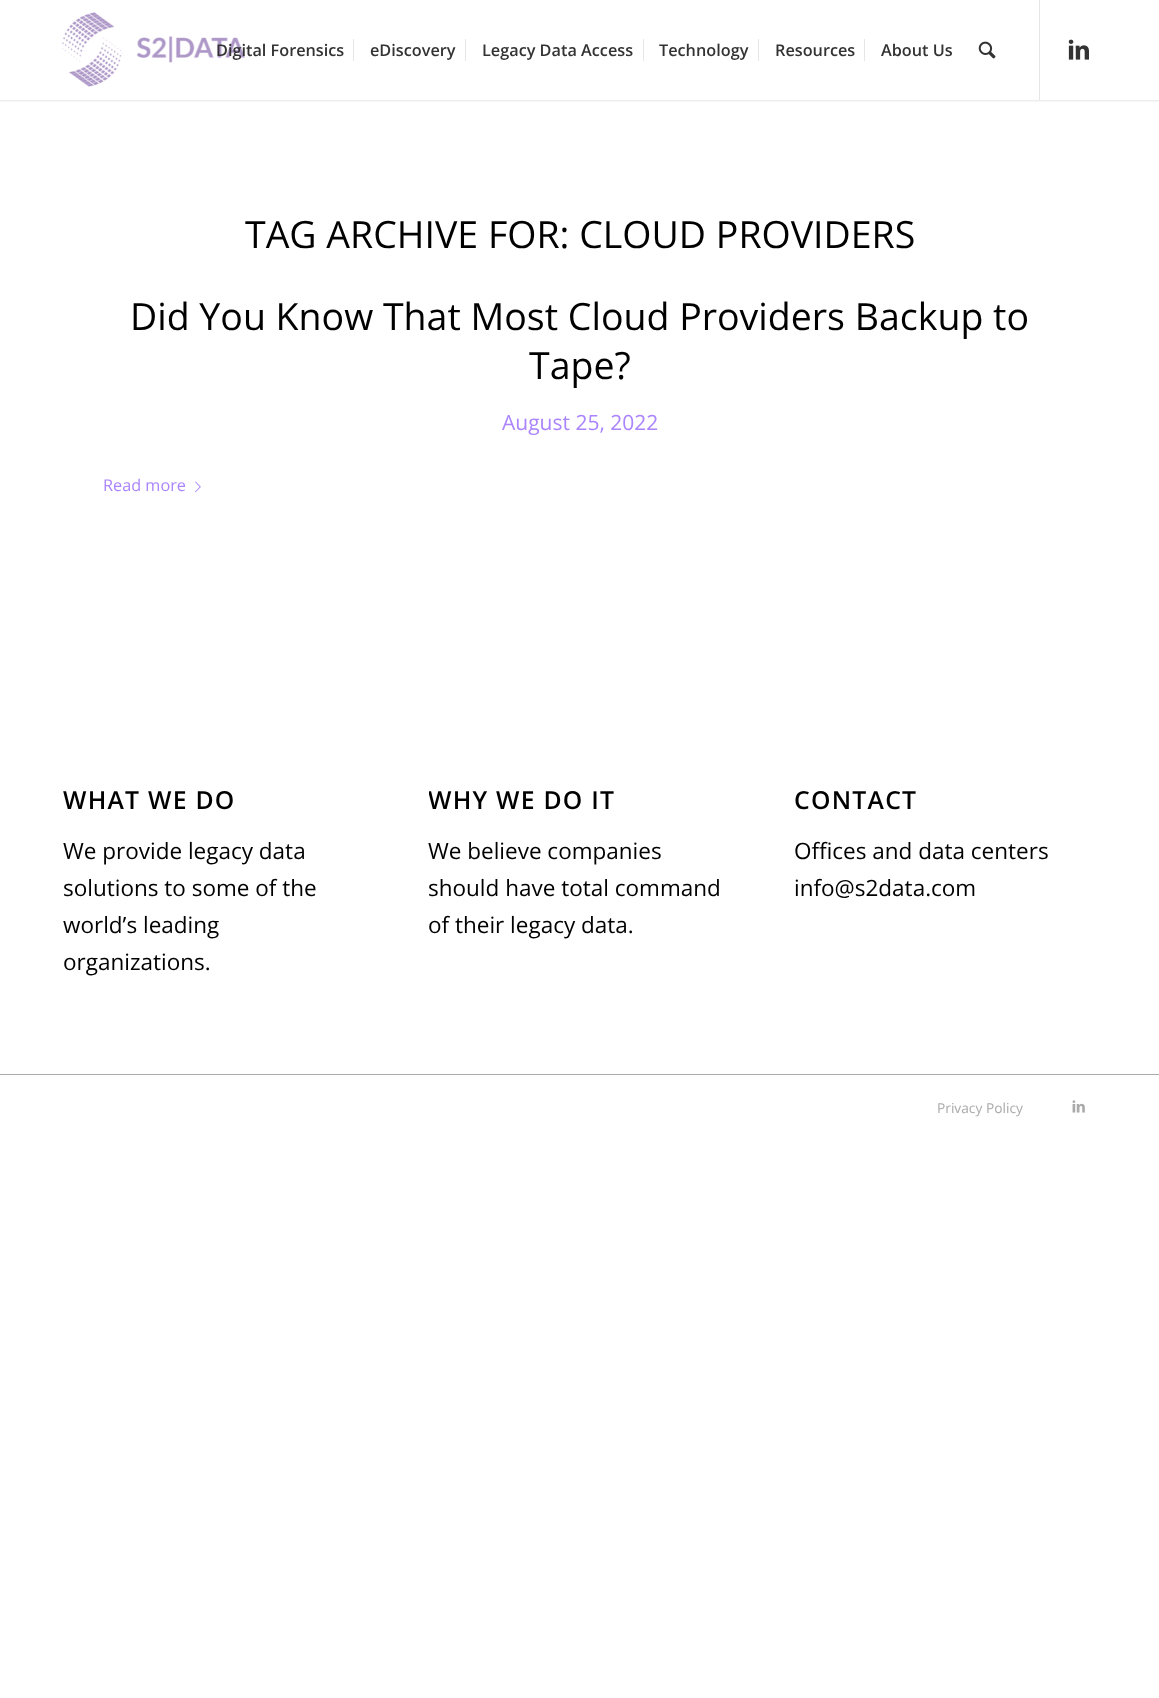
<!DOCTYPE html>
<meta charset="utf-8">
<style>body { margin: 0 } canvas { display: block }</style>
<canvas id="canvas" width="1159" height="1698"></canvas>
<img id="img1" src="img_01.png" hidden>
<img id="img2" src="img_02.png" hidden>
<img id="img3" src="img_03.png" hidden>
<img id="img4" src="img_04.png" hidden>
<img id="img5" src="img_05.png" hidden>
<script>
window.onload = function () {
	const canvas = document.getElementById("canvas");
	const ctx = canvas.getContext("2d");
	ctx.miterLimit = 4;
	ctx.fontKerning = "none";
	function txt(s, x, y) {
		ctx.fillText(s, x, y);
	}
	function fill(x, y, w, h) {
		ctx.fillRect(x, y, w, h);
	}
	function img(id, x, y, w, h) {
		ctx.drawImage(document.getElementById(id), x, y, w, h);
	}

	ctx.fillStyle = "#FFFFFF";
	fill(0, 0, 1159, 1698);
	ctx.save();
	ctx.beginPath();
	ctx.rect(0, 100, 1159, 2);
	ctx.clip();
	ctx.fillStyle = "rgba(0, 0, 0, 0.1)";
	ctx.filter = "blur(1px)";
	ctx.beginPath();
	ctx.rect(-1, -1, 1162, 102);
	ctx.fill();
	ctx.filter = "none";
	ctx.restore();
	img("img1", 62, 12, 183, 75);
	ctx.fillStyle = "#E6E6E6";
	fill(1039, 0, 1, 100);
	fill(353, 39, 1, 22);
	fill(465, 39, 1, 22);
	fill(643, 39, 1, 22);
	fill(758, 39, 1, 22);
	fill(864, 39, 1, 22);
	img("img2", 978, 41, 18, 18);
	img("img3", 1068, 39, 21, 21);
	img("img4", 195, 481, 6, 12);
	ctx.fillStyle = "#AAAAAA";
	fill(0, 1074, 1159, 1);
	img("img5", 1072, 1100, 13, 13);
	ctx.font = "600 16.25px Open Sans";
	ctx.fillStyle = "#333333";
	txt("Digital Forensics", 216, 56);
	txt("eDiscovery", 370, 56);
	txt("Legacy Data Access", 482, 56);
	txt("Technology", 659, 56);
	txt("Resources", 775, 56);
	txt("About Us", 881, 56);
	ctx.font = "37.5px Open Sans";
	ctx.fillStyle = "#000000";
	txt("TAG ARCHIVE FOR: CLOUD PROVIDERS", 245, 248);
	txt("Did You Know That Most Cloud Providers Backup to", 130, 330);
	txt("Tape?", 529, 379);
	ctx.font = "21px Open Sans";
	ctx.fillStyle = "#AB85FC";
	txt("August 25, 2022", 502, 430);
	ctx.font = "16.25px Open Sans";
	txt("Read more", 103, 491);
	ctx.letterSpacing = "1.25px";
	ctx.font = "600 24.75px Open Sans";
	ctx.fillStyle = "#000000";
	txt("WHAT WE DO", 63, 809);
	ctx.letterSpacing = "0px";
	ctx.font = "22.5px Open Sans";
	txt("We provide legacy data", 63, 859);
	txt("solutions to some of the", 63, 896);
	txt("world’s leading", 63, 933);
	txt("organizations.", 63, 970);
	ctx.save();
	ctx.beginPath();
	ctx.rect(429, 765, 302, 199);
	ctx.clip();
	ctx.letterSpacing = "1.25px";
	ctx.font = "600 24.75px Open Sans";
	txt("WHY WE DO IT", 428, 809);
	ctx.restore();
	txt("We believe companies", 428, 859);
	txt("should have total command", 428, 896);
	txt("of their legacy data.", 428, 933);
	ctx.letterSpacing = "1.25px";
	ctx.font = "600 24.75px Open Sans";
	txt("CONTACT", 794, 809);
	ctx.letterSpacing = "0px";
	ctx.font = "22.5px Open Sans";
	txt("Offices and data centers", 794, 859);
	txt("info@s2data.com", 794, 896);
	ctx.font = "13.75px Open Sans";
	ctx.fillStyle = "#AAAAAA";
	txt("Privacy Policy", 937, 1113);
};
</script>
